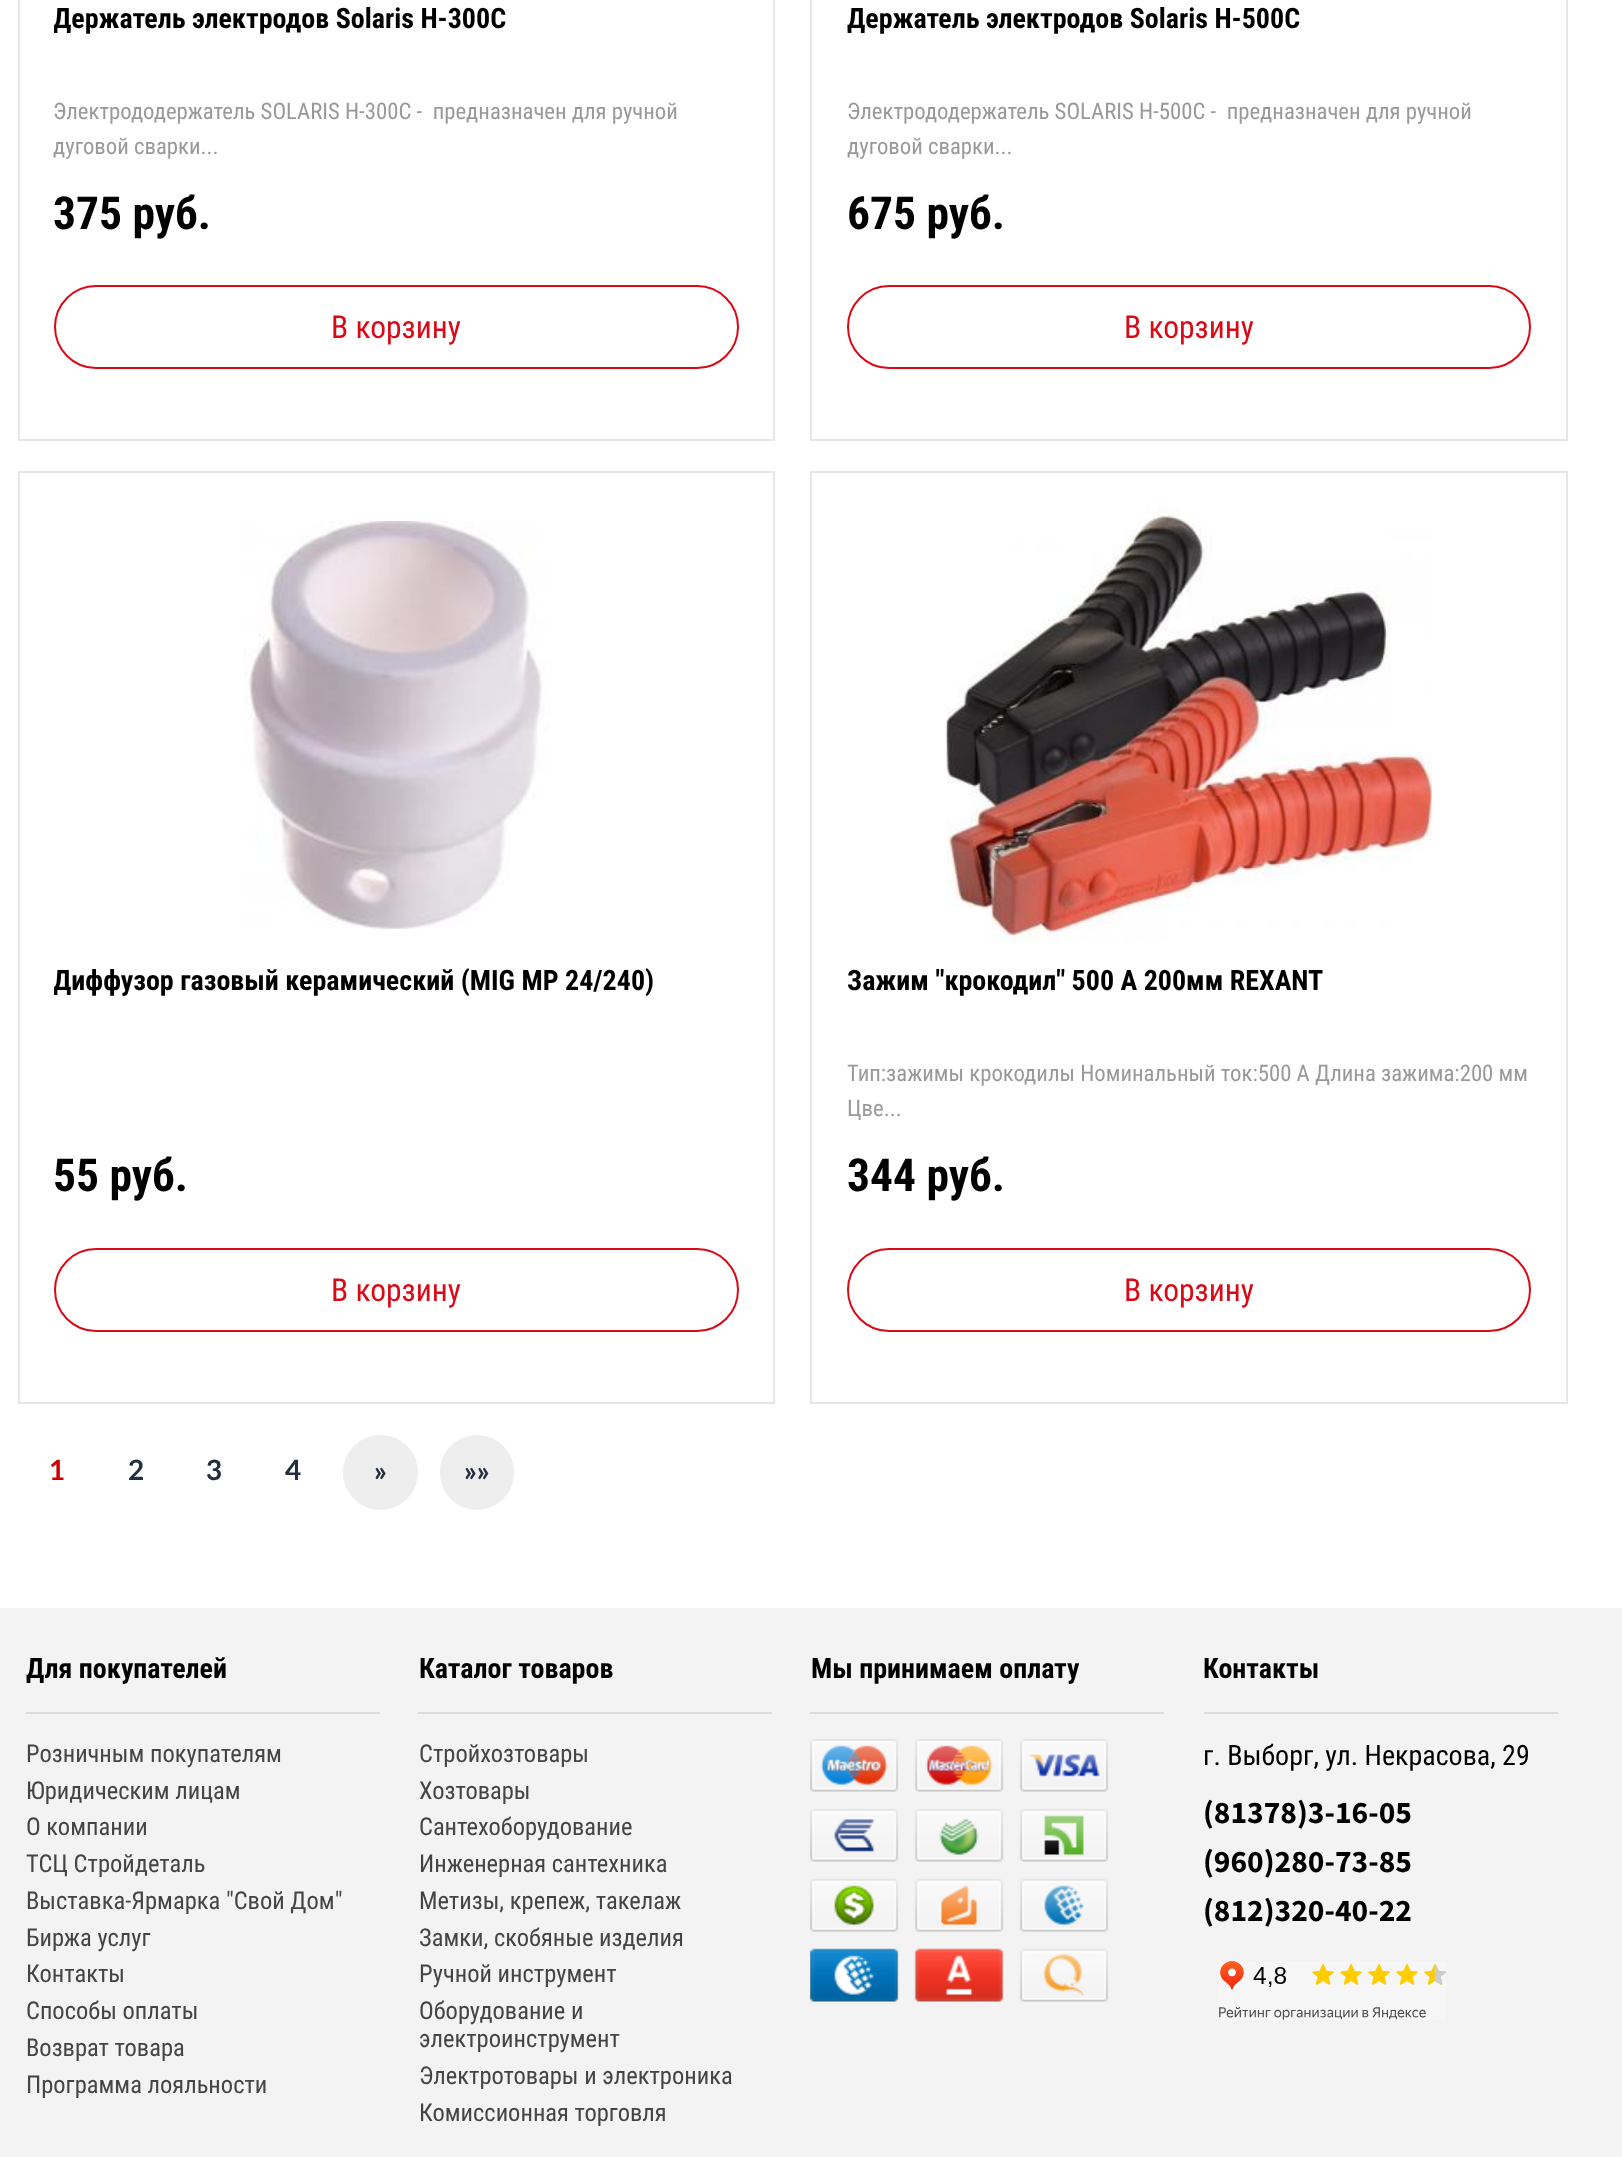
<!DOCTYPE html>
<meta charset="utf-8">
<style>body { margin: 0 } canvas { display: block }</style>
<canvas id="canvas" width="1622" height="2157"></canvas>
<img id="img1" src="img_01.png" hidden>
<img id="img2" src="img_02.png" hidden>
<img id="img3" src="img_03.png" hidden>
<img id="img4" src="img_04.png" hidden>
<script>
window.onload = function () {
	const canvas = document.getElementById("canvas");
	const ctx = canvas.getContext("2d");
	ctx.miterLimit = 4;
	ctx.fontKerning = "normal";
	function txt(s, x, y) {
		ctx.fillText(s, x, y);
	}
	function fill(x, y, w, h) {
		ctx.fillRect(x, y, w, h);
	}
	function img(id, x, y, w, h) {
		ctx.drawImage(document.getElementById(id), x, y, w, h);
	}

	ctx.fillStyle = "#FFFFFF";
	fill(0, 0, 1622, 2157);
	ctx.strokeStyle = "#E6E7E8";
	ctx.lineWidth = 2;
	ctx.strokeRect(19, -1, 755, 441);
	ctx.beginPath();
	ctx.roundRect(55, 286, 683, 82, 41);
	ctx.strokeStyle = "#DA0916";
	ctx.stroke();
	ctx.strokeStyle = "#E6E7E8";
	ctx.strokeRect(811, -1, 756, 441);
	ctx.beginPath();
	ctx.roundRect(848, 286, 682, 82, 41);
	ctx.strokeStyle = "#DA0916";
	ctx.stroke();
	ctx.strokeStyle = "#E6E7E8";
	ctx.strokeRect(19, 472, 755, 931);
	img("img1", 244, 521, 307, 408);
	ctx.beginPath();
	ctx.roundRect(55, 1249, 683, 82, 41);
	ctx.strokeStyle = "#DA0916";
	ctx.stroke();
	ctx.strokeStyle = "#E6E7E8";
	ctx.strokeRect(811, 472, 756, 931);
	img("img2", 946, 507, 486, 437);
	ctx.beginPath();
	ctx.roundRect(848, 1249, 682, 82, 41);
	ctx.strokeStyle = "#DA0916";
	ctx.stroke();
	ctx.fillStyle = "#EEEEEE";
	ctx.beginPath();
	ctx.arc(380.5, 1472.5, 38.5, 0, Math.PI * 2);
	ctx.fill();
	ctx.strokeStyle = "#FFFFFF";
	ctx.stroke();
	ctx.beginPath();
	ctx.roundRect(439, 1434, 76, 77, 38);
	ctx.fill();
	ctx.stroke();
	ctx.fillStyle = "#F3F3F3";
	fill(0, 1608, 1622, 549);
	ctx.fillStyle = "#DBDBDB";
	fill(26, 1712, 354, 2);
	fill(418, 1712, 354, 2);
	fill(810, 1712, 354, 2);
	img("img3", 810, 1739, 298, 263);
	fill(1204, 1712, 354, 2);
	img("img4", 1219, 1961, 227, 59);
	ctx.save();
	ctx.beginPath();
	ctx.rect(54, 0, 685, 77);
	ctx.clip();
	ctx.font = "bold 28px Roboto Condensed";
	ctx.fillStyle = "#000000";
	txt("Держатель электродов Solaris H-300C", 53, 28);
	ctx.restore();
	ctx.font = "22.75px Roboto Condensed";
	ctx.fillStyle = "#999999";
	txt("Электрододержатель SOLARIS H-300C -  предназначен для ручной", 53, 119);
	txt("дуговой сварки...", 53, 154);
	ctx.font = "bold 45.5px Roboto Condensed";
	ctx.fillStyle = "#000000";
	txt("375 руб.", 53, 229);
	ctx.font = "31.5px Roboto Condensed";
	ctx.fillStyle = "#DA0916";
	txt("В корзину", 331, 338);
	ctx.font = "bold 28px Roboto Condensed";
	ctx.fillStyle = "#000000";
	txt("Держатель электродов Solaris H-500C", 847, 28);
	ctx.font = "22.75px Roboto Condensed";
	ctx.fillStyle = "#999999";
	txt("Электрододержатель SOLARIS H-500C -  предназначен для ручной", 847, 119);
	txt("дуговой сварки...", 847, 154);
	ctx.font = "bold 45.5px Roboto Condensed";
	ctx.fillStyle = "#000000";
	txt("675 руб.", 847, 229);
	ctx.font = "31.5px Roboto Condensed";
	ctx.fillStyle = "#DA0916";
	txt("В корзину", 1124, 338);
	ctx.save();
	ctx.beginPath();
	ctx.rect(54, 963, 685, 77);
	ctx.clip();
	ctx.font = "bold 28px Roboto Condensed";
	ctx.fillStyle = "#000000";
	txt("Диффузор газовый керамический (MIG MP 24/240)", 53, 990);
	ctx.restore();
	ctx.font = "bold 45.5px Roboto Condensed";
	ctx.fillStyle = "#000000";
	txt("55 руб.", 53, 1191);
	ctx.font = "31.5px Roboto Condensed";
	ctx.fillStyle = "#DA0916";
	txt("В корзину", 331, 1301);
	ctx.font = "bold 28px Roboto Condensed";
	ctx.fillStyle = "#000000";
	txt("Зажим \"крокодил\" 500 А 200мм REXANT", 847, 990);
	ctx.font = "22.75px Roboto Condensed";
	ctx.fillStyle = "#999999";
	txt("Тип:зажимы крокодилы Номинальный ток:500 А Длина зажима:200 мм", 847, 1081);
	txt("Цве...", 847, 1116);
	ctx.font = "bold 45.5px Roboto Condensed";
	ctx.fillStyle = "#000000";
	txt("344 руб.", 847, 1191);
	ctx.font = "31.5px Roboto Condensed";
	ctx.fillStyle = "#DA0916";
	txt("В корзину", 1124, 1301);
	ctx.font = "bold 28px Lato";
	ctx.fillStyle = "#CC0000";
	txt("1", 49, 1480);
	ctx.fillStyle = "#232F3E";
	txt("2", 128, 1480);
	txt("3", 206, 1480);
	txt("4", 285, 1480);
	txt("»", 374, 1481);
	txt("»»", 464, 1481);
	ctx.font = "bold 28px Roboto Condensed";
	ctx.fillStyle = "#000000";
	txt("Для покупателей", 26, 1678);
	ctx.font = "24.5px Roboto Condensed";
	ctx.fillStyle = "#444444";
	txt("Розничным покупателям", 26, 1762);
	txt("Юридическим лицам", 26, 1799);
	txt("О компании", 26, 1835);
	txt("ТСЦ Стройдеталь", 26, 1872);
	txt("Выставка-Ярмарка \"Свой Дом\"", 26, 1909);
	txt("Биржа услуг", 26, 1946);
	txt("Контакты", 26, 1982);
	txt("Способы оплаты", 26, 2019);
	txt("Возврат товара", 26, 2056);
	txt("Программа лояльности", 26, 2093);
	ctx.font = "bold 28px Roboto Condensed";
	ctx.fillStyle = "#000000";
	txt("Каталог товаров", 419, 1678);
	ctx.font = "24.5px Roboto Condensed";
	ctx.fillStyle = "#444444";
	txt("Стройхозтовары", 419, 1762);
	txt("Хозтовары", 419, 1799);
	txt("Сантехоборудование", 419, 1835);
	txt("Инженерная сантехника", 419, 1872);
	txt("Метизы, крепеж, такелаж", 419, 1909);
	txt("Замки, скобяные изделия", 419, 1946);
	txt("Ручной инструмент", 419, 1982);
	txt("Оборудование и", 419, 2019);
	txt("электроинструмент", 419, 2047);
	txt("Электротовары и электроника", 419, 2084);
	txt("Комиссионная торговля", 419, 2121);
	ctx.font = "bold 28px Roboto Condensed";
	ctx.fillStyle = "#000000";
	txt("Мы принимаем оплату", 811, 1678);
	txt("Контакты", 1203, 1678);
	ctx.font = "28px Roboto Condensed";
	txt("г. Выборг, ул. Некрасова, 29", 1203, 1765);
	ctx.font = "bold 31.5px Source Sans Pro";
	txt("(81378)3-16-05", 1203, 1823);
	txt("(960)280-73-85", 1203, 1872);
	txt("(812)320-40-22", 1203, 1921);
};
</script>
